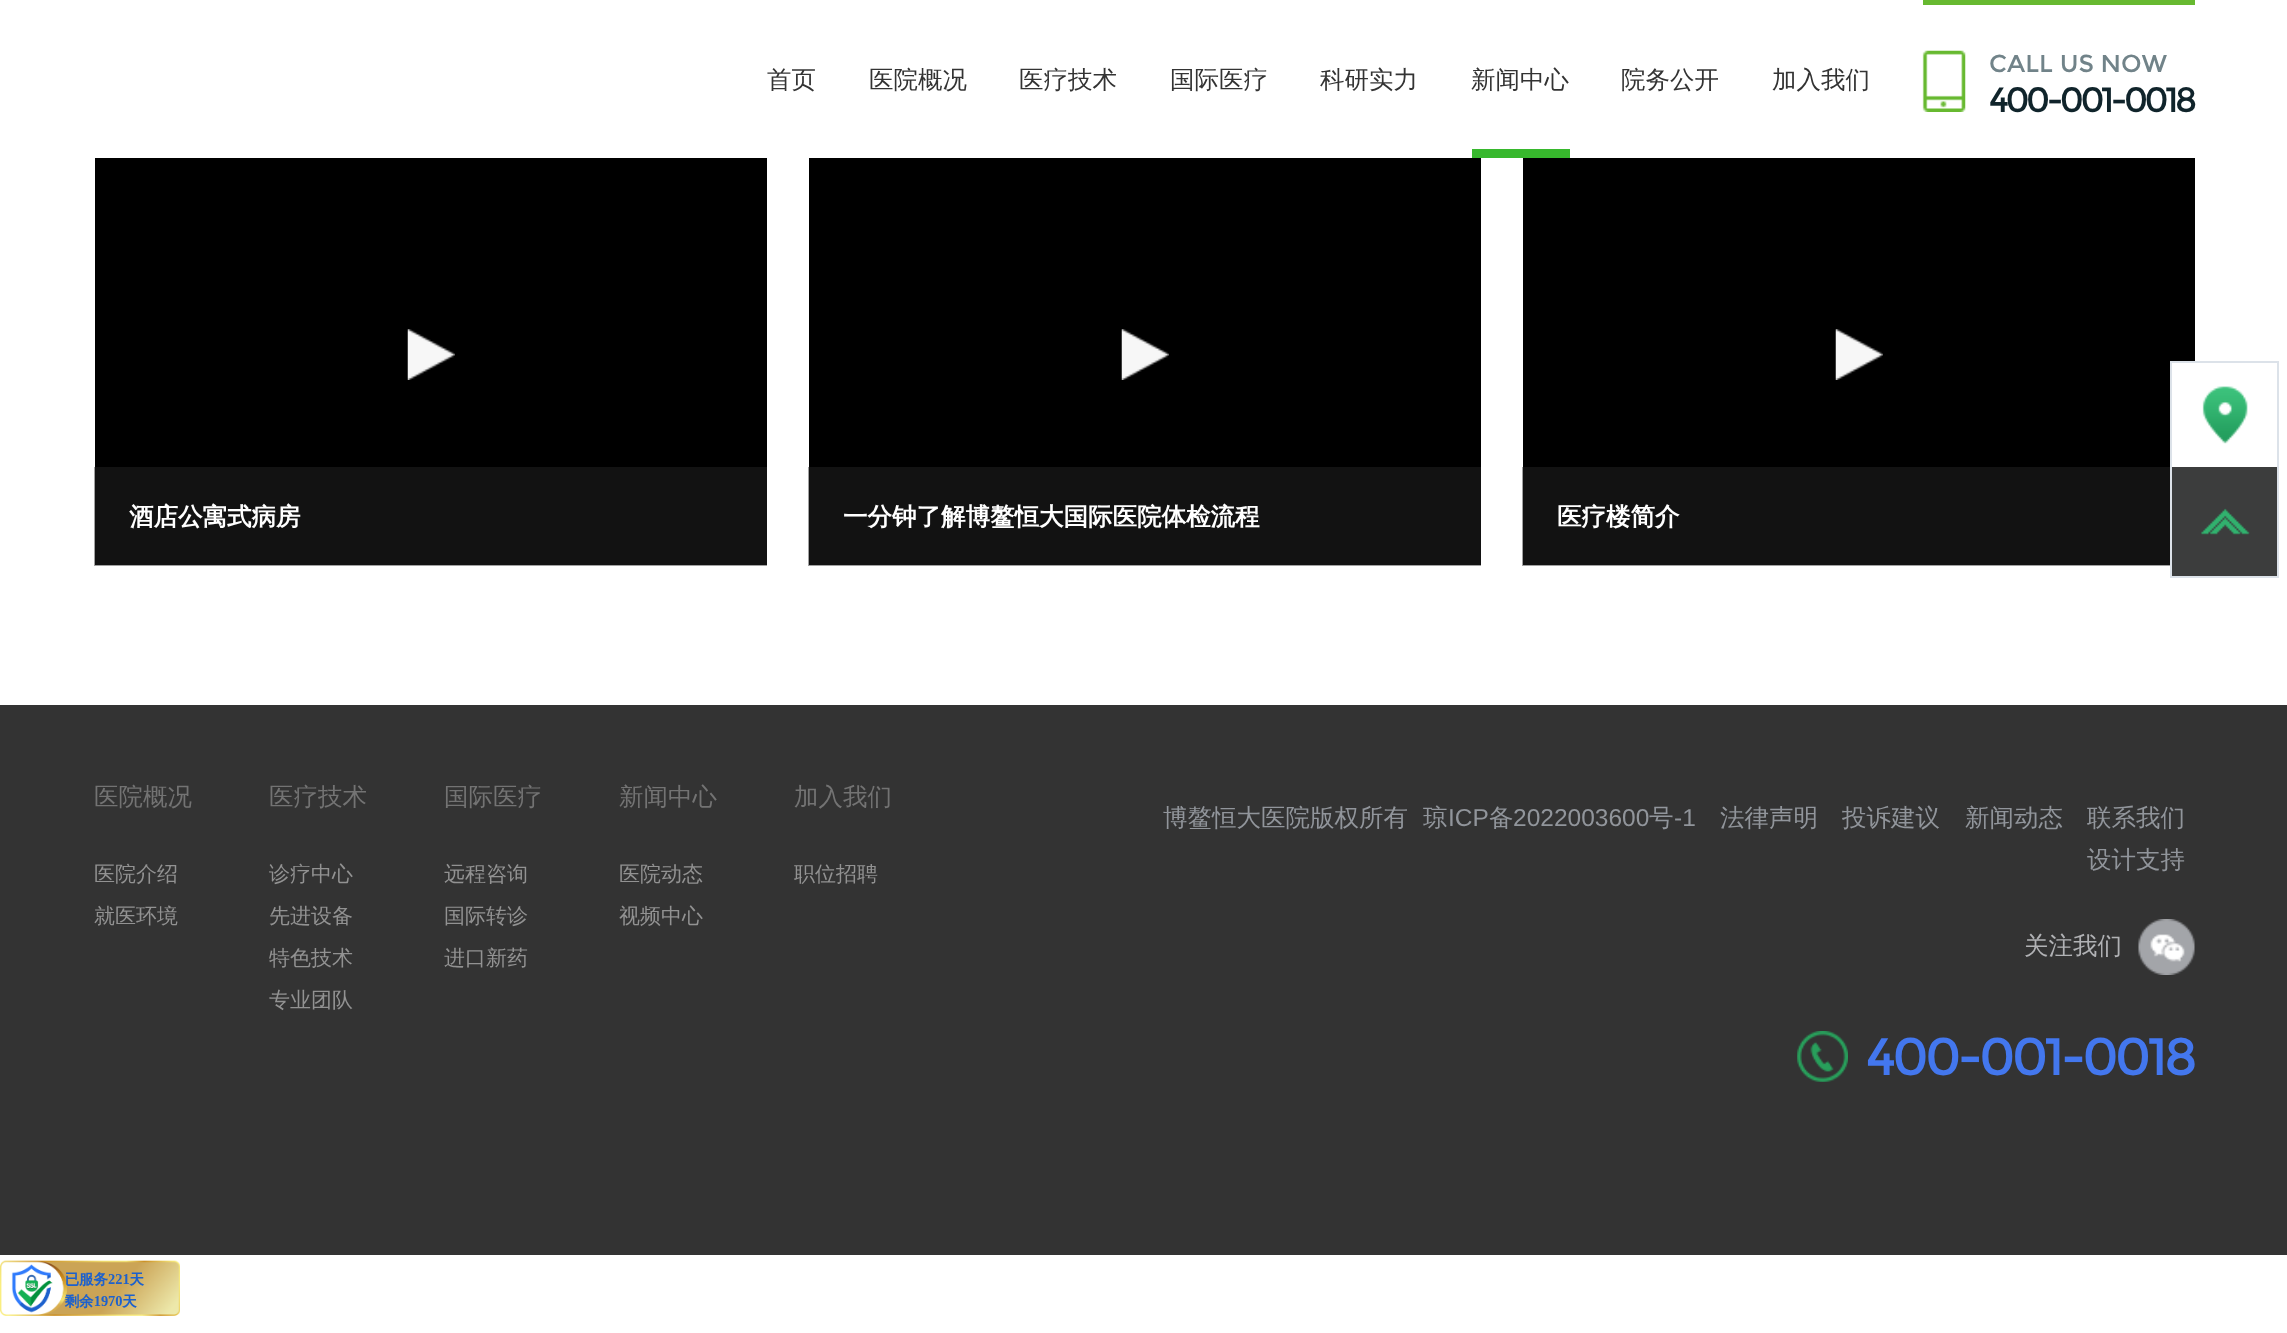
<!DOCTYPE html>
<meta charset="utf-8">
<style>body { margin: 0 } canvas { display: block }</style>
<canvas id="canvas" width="2287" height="1333"></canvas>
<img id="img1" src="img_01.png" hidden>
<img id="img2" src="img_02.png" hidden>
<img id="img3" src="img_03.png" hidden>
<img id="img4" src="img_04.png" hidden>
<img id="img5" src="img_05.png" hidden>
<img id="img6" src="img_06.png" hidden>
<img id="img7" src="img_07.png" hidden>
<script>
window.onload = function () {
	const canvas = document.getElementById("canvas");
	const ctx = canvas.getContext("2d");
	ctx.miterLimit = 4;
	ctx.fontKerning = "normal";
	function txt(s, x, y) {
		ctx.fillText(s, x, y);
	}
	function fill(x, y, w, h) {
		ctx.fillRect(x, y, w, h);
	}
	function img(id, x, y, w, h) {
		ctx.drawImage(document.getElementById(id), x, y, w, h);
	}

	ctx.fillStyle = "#FFFFFF";
	fill(0, 0, 2287, 1333);
	ctx.fillStyle = "#A1A1A1";
	fill(1522, 467, 648, 99);
	fill(808, 467, 673, 99);
	fill(94, 467, 673, 99);
	ctx.fillStyle = "#37B82D";
	fill(1472, 149, 98, 9);
	ctx.fillStyle = "#67B930";
	fill(1923, 0, 272, 5);
	img("img1", 1922, 50, 44, 62);
	ctx.fillStyle = "#000000";
	fill(95, 158, 672, 309);
	ctx.fillStyle = "#121212";
	fill(95, 467, 672, 98);
	img("img2", 407, 329, 48, 51);
	ctx.fillStyle = "#000000";
	fill(809, 158, 672, 309);
	ctx.fillStyle = "#121212";
	fill(809, 467, 672, 98);
	img("img2", 1121, 329, 48, 51);
	ctx.fillStyle = "#000000";
	fill(1523, 158, 672, 309);
	ctx.fillStyle = "#121212";
	fill(1523, 467, 647, 98);
	img("img2", 1835, 329, 48, 51);
	ctx.fillStyle = "#FFFFFF";
	fill(2172, 363, 23, 104);
	ctx.strokeStyle = "#DCE2E9";
	ctx.lineWidth = 2;
	ctx.strokeRect(2171, 362, 107, 215);
	img("img3", 2202, 386, 46, 58);
	ctx.fillStyle = "#3C3D3D";
	fill(2172, 467, 105, 109);
	img("img4", 2201, 508, 49, 27);
	ctx.fillStyle = "#333333";
	fill(0, 705, 2287, 550);
	img("img5", 2138, 919, 57, 56);
	img("img6", 1797, 1031, 51, 51);
	img("img7", 0, 1260, 180, 56);
	ctx.font = "500 24.5px WenQuanYi Zen Hei";
	txt("首页", 767, 88);
	txt("医院概况", 869, 88);
	txt("医疗技术", 1019, 88);
	txt("国际医疗", 1170, 88);
	txt("科研实力", 1320, 88);
	txt("新闻中心", 1471, 88);
	txt("院务公开", 1621, 88);
	txt("加入我们", 1772, 88);
	ctx.font = "24.5px Montserrat";
	ctx.fillStyle = "#718389";
	txt("CALL US NOW", 1989, 72);
	ctx.letterSpacing = "-3.5px";
	ctx.font = "35px Montserrat";
	ctx.fillStyle = "#10242B";
	txt("400-001-0018", 1989, 112);
	ctx.letterSpacing = "0px";
	ctx.font = "bold 24.5px WenQuanYi Zen Hei";
	ctx.fillStyle = "#FFFFFF";
	txt("酒店公寓式病房", 129, 525);
	txt("一分钟了解博鳌恒大国际医院体检流程", 843, 525);
	txt("医疗楼简介", 1557, 525);
	ctx.font = "500 24.5px WenQuanYi Zen Hei";
	ctx.fillStyle = "#737373";
	txt("医院概况", 94, 805);
	ctx.font = "500 21px WenQuanYi Zen Hei";
	ctx.fillStyle = "#929292";
	txt("医院介绍", 94, 881);
	txt("就医环境", 94, 923);
	ctx.font = "500 24.5px WenQuanYi Zen Hei";
	ctx.fillStyle = "#737373";
	txt("医疗技术", 269, 805);
	ctx.font = "500 21px WenQuanYi Zen Hei";
	ctx.fillStyle = "#929292";
	txt("诊疗中心", 269, 881);
	txt("先进设备", 269, 923);
	txt("特色技术", 269, 965);
	txt("专业团队", 269, 1007);
	ctx.font = "500 24.5px WenQuanYi Zen Hei";
	ctx.fillStyle = "#737373";
	txt("国际医疗", 444, 805);
	ctx.font = "500 21px WenQuanYi Zen Hei";
	ctx.fillStyle = "#929292";
	txt("远程咨询", 444, 881);
	txt("国际转诊", 444, 923);
	txt("进口新药", 444, 965);
	ctx.font = "500 24.5px WenQuanYi Zen Hei";
	ctx.fillStyle = "#737373";
	txt("新闻中心", 619, 805);
	ctx.font = "500 21px WenQuanYi Zen Hei";
	ctx.fillStyle = "#929292";
	txt("医院动态", 619, 881);
	txt("视频中心", 619, 923);
	ctx.font = "500 24.5px WenQuanYi Zen Hei";
	ctx.fillStyle = "#737373";
	txt("加入我们", 794, 805);
	ctx.font = "500 21px WenQuanYi Zen Hei";
	ctx.fillStyle = "#929292";
	txt("职位招聘", 794, 881);
	ctx.font = "500 24.5px WenQuanYi Zen Hei";
	ctx.fillStyle = "#91959B";
	txt("博鳌恒大医院版权所有", 1163, 826);
	txt("琼", 1423, 826);
	ctx.font = "24.5px Liberation Sans";
	txt("ICP", 1448, 826);
	ctx.font = "500 24.5px WenQuanYi Zen Hei";
	txt("备", 1489, 826);
	ctx.font = "24.5px Liberation Sans";
	txt("2022003600", 1513, 826);
	ctx.font = "500 24.5px WenQuanYi Zen Hei";
	txt("号", 1649, 826);
	ctx.font = "24.5px Liberation Sans";
	txt("-1", 1674, 826);
	ctx.font = "500 24.5px WenQuanYi Zen Hei";
	txt("法律声明", 1720, 826);
	txt("投诉建议", 1842, 826);
	txt("新闻动态", 1965, 826);
	txt("联系我们", 2087, 826);
	txt("设计支持", 2087, 868);
	ctx.fillStyle = "#B1B2B5";
	txt("关注我们", 2024, 954);
	ctx.letterSpacing = "-3.5px";
	ctx.font = "52.5px Montserrat";
	ctx.fillStyle = "#4377EE";
	txt("400-001-0018", 1866, 1075);
};
</script>
